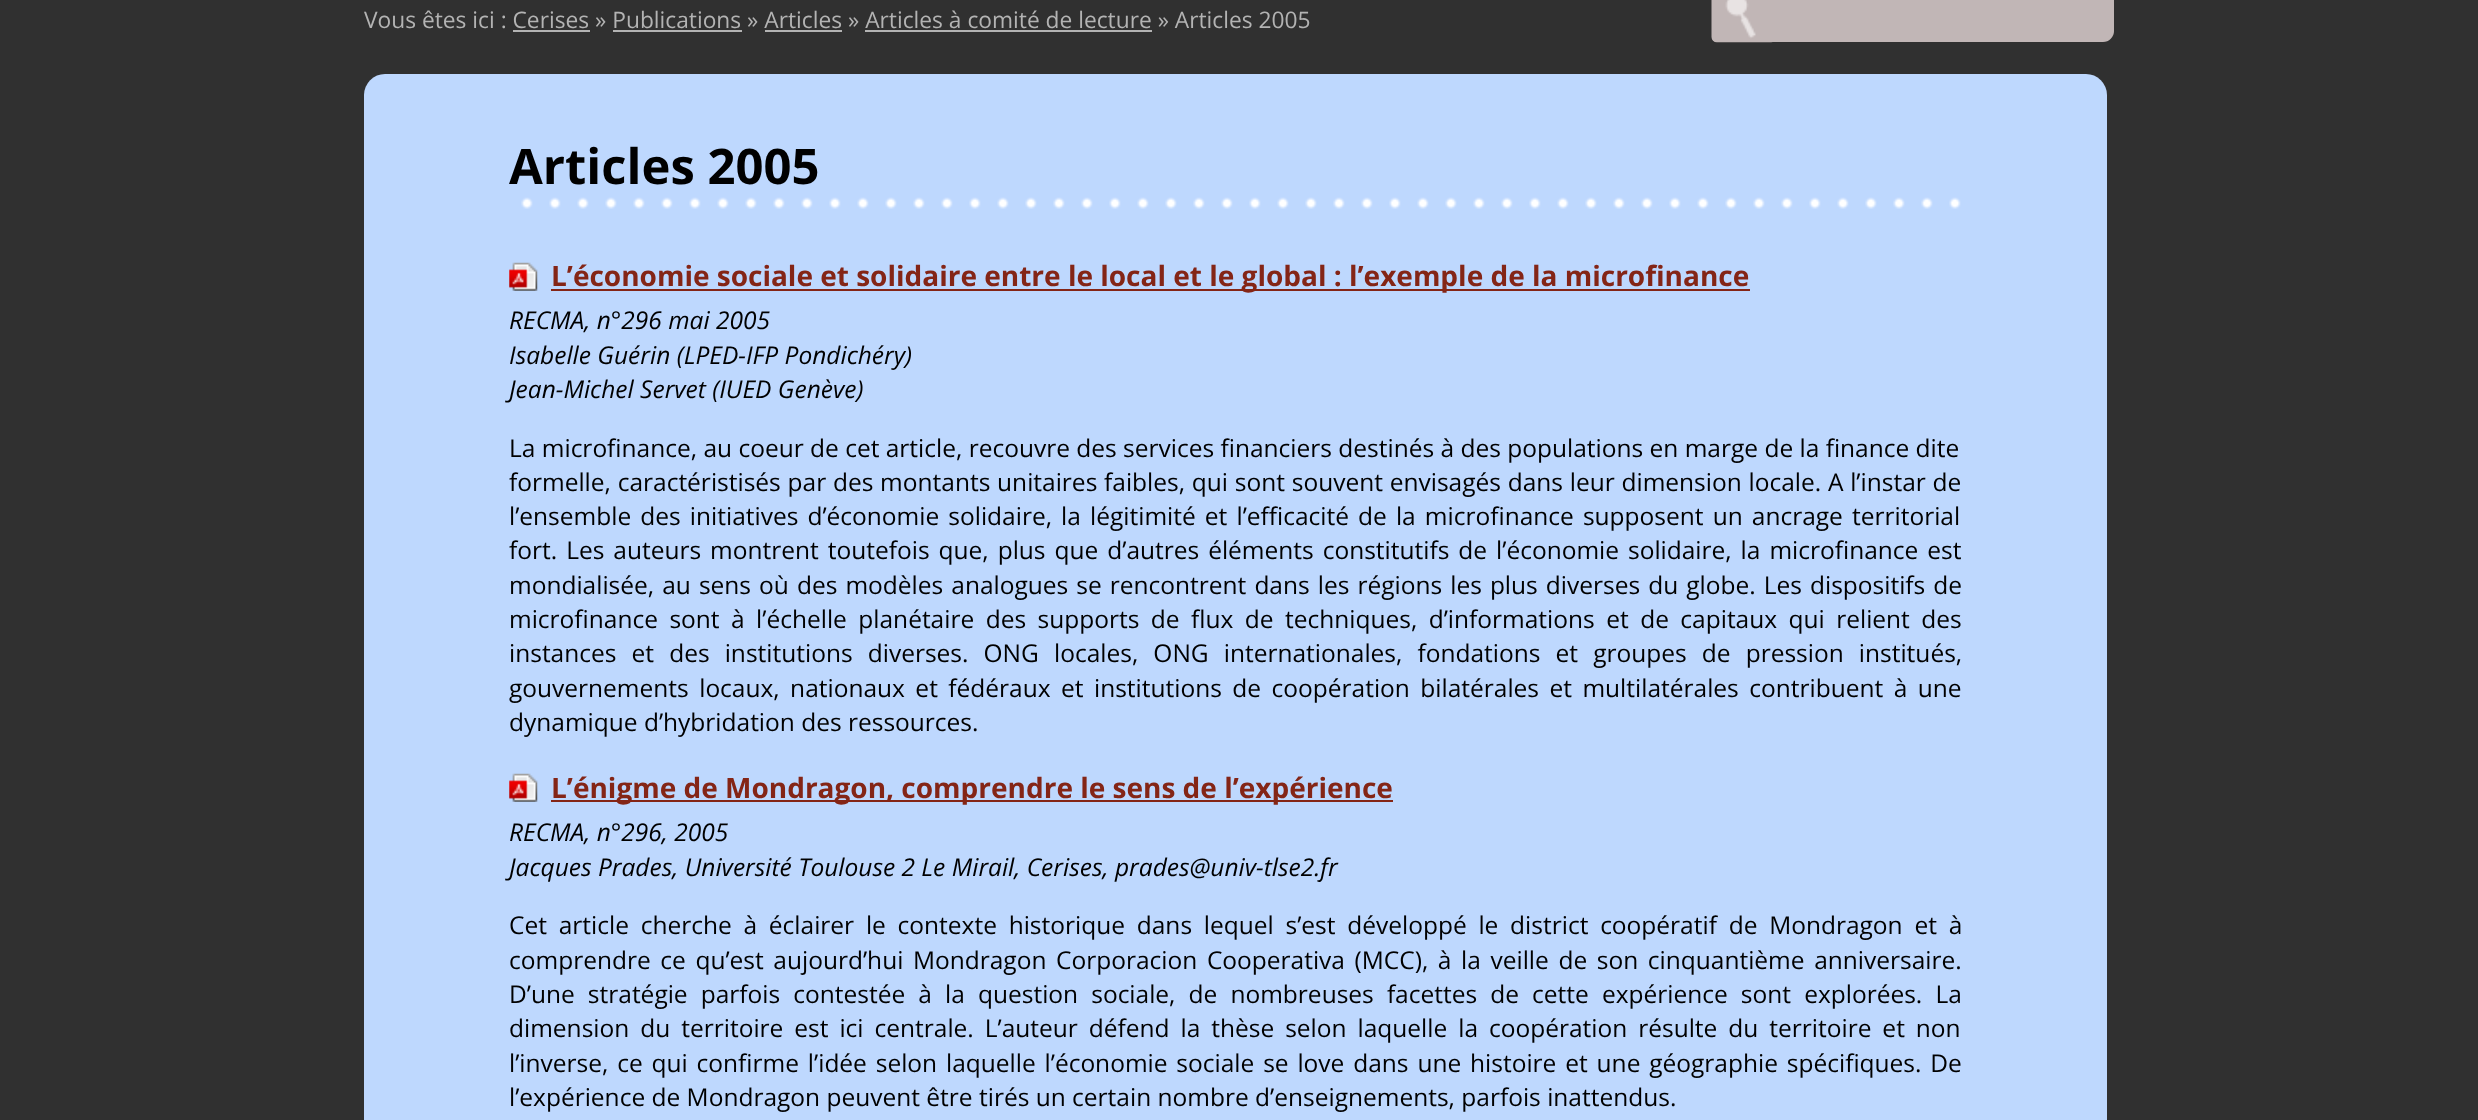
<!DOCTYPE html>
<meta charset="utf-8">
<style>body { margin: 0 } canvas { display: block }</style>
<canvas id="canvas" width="2478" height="1120"></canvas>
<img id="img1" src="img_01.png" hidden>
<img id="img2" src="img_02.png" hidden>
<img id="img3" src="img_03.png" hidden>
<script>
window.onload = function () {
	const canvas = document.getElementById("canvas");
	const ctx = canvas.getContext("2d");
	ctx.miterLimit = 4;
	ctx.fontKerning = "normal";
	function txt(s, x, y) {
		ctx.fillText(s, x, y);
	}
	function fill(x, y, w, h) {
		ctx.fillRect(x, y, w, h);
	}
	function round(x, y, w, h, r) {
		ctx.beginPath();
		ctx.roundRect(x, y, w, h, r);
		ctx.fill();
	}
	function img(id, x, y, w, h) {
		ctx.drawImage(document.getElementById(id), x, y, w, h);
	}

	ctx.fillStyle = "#303030";
	fill(0, 0, 2478, 1120);
	ctx.fillStyle = "#B3B3B3";
	fill(513, 30, 77, 2);
	fill(613, 30, 129, 2);
	fill(765, 30, 77, 2);
	fill(865, 30, 287, 2);
	ctx.fillStyle = "#C1B6B6";
	round(1712, -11, 402, 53, 11);
	round(1712, -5, 64, 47, 5);
	img("img1", 1711, 0, 62, 43);
	ctx.fillStyle = "#BED8FE";
	round(364, 74, 1743, 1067, 21);
	img("img2", 521, 197, 1440, 12);
	img("img3", 509, 262, 29, 29);
	ctx.fillStyle = "#842516";
	fill(551, 289, 1199, 2);
	img("img3", 509, 773, 29, 29);
	fill(551, 800, 842, 2);
	ctx.font = "22.75px Open Sans";
	ctx.fillStyle = "#B3B3B3";
	txt("Vous êtes ici : Cerises » Publications » Articles » Articles à comité de lecture » Articles 2005", 364, 28);
	ctx.font = "bold 49px Open Sans";
	ctx.fillStyle = "#000000";
	txt("Articles 2005", 509, 184);
	ctx.font = "bold 28px Open Sans";
	ctx.fillStyle = "#842516";
	txt("L’économie sociale et solidaire entre le local et le global : l’exemple de la microfinance", 551, 286);
	ctx.font = "italic 24.5px Open Sans";
	ctx.fillStyle = "#000000";
	txt("RECMA, n°296 mai 2005", 509, 329);
	txt("Isabelle Guérin (LPED-IFP Pondichéry)", 509, 364);
	txt("Jean-Michel Servet (IUED Genève)", 509, 398);
	ctx.font = "24.5px Open Sans";
	txt("La microfinance, au coeur de cet article, recouvre des services financiers destinés à des populations en marge de la finance dite", 509, 457);
	ctx.wordSpacing = "0.4px";
	txt("formelle, caractéristisés par des montants unitaires faibles, qui sont souvent envisagés dans leur dimension locale. A l’instar de", 509, 491);
	ctx.wordSpacing = "2.75px";
	txt("l’ensemble des initiatives d’économie solidaire, la légitimité et l’efficacité de la microfinance supposent un ancrage territorial", 509, 525);
	ctx.wordSpacing = "2.6px";
	txt("fort. Les auteurs montrent toutefois que, plus que d’autres éléments constitutifs de l’économie solidaire, la microfinance est", 509, 559);
	ctx.wordSpacing = "1.7px";
	txt("mondialisée, au sens où des modèles analogues se rencontrent dans les régions les plus diverses du globe. Les dispositifs de", 509, 594);
	ctx.wordSpacing = "5.1px";
	txt("microfinance sont à l’échelle planétaire des supports de flux de techniques, d’informations et de capitaux qui relient des", 509, 628);
	ctx.wordSpacing = "8.75px";
	txt("instances et des institutions diverses. ONG locales, ONG internationales, fondations et groupes de pression institués,", 509, 662);
	ctx.wordSpacing = "4.1px";
	txt("gouvernements locaux, nationaux et fédéraux et institutions de coopération bilatérales et multilatérales contribuent à une", 509, 697);
	ctx.wordSpacing = "0px";
	txt("dynamique d’hybridation des ressources.", 509, 731);
	ctx.font = "bold 28px Open Sans";
	ctx.fillStyle = "#842516";
	txt("L’énigme de Mondragon, comprendre le sens de l’expérience", 551, 798);
	ctx.font = "italic 24.5px Open Sans";
	ctx.fillStyle = "#000000";
	txt("RECMA, n°296, 2005", 509, 841);
	txt("Jacques Prades, Université Toulouse 2 Le Mirail, Cerises, prades@univ-tlse2.fr", 509, 876);
	ctx.wordSpacing = "5.4px";
	ctx.font = "24.5px Open Sans";
	txt("Cet article cherche à éclairer le contexte historique dans lequel s’est développé le district coopératif de Mondragon et à", 509, 934);
	ctx.wordSpacing = "3.25px";
	txt("comprendre ce qu’est aujourd’hui Mondragon Corporacion Cooperativa (MCC), à la veille de son cinquantième anniversaire.", 509, 969);
	ctx.wordSpacing = "6.75px";
	txt("D’une stratégie parfois contestée à la question sociale, de nombreuses facettes de cette expérience sont explorées. La", 509, 1003);
	ctx.wordSpacing = "4.6px";
	txt("dimension du territoire est ici centrale. L’auteur défend la thèse selon laquelle la coopération résulte du territoire et non", 509, 1037);
	ctx.wordSpacing = "2.5px";
	txt("l’inverse, ce qui confirme l’idée selon laquelle l’économie sociale se love dans une histoire et une géographie spécifiques. De", 509, 1072);
	ctx.wordSpacing = "0px";
	txt("l’expérience de Mondragon peuvent être tirés un certain nombre d’enseignements, parfois inattendus.", 509, 1106);
};
</script>
